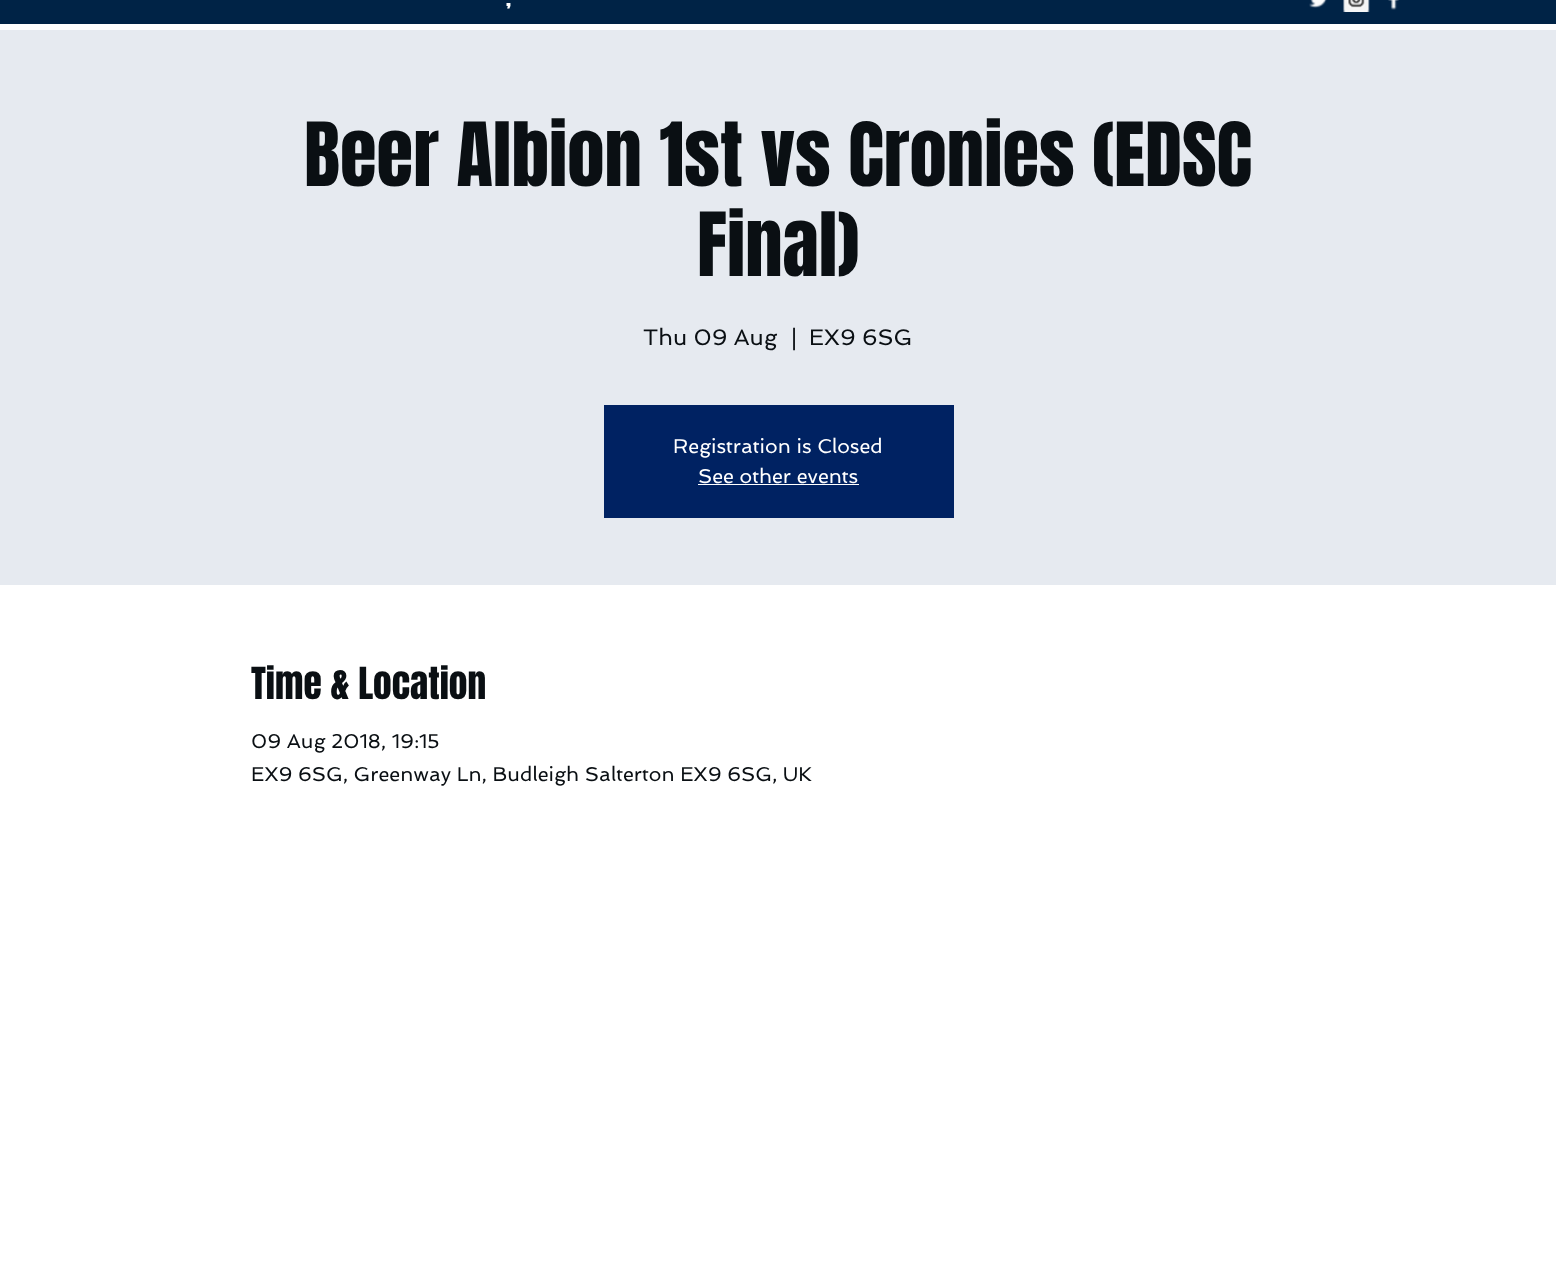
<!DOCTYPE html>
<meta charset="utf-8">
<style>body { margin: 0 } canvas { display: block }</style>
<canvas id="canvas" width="1556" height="1282"></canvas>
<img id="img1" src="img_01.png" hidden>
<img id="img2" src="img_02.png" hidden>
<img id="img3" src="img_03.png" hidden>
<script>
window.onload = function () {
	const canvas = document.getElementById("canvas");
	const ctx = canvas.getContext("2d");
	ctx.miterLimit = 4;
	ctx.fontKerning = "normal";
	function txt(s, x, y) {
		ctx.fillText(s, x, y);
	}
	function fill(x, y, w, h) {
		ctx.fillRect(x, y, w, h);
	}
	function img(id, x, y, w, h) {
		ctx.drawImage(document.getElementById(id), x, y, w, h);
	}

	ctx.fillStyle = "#FFFFFF";
	fill(0, 0, 1556, 1282);
	ctx.fillStyle = "#002346";
	fill(0, 0, 1556, 24);
	img("img1", 1309, 0, 18, 8);
	img("img2", 1343, 0, 27, 12);
	img("img3", 1388, 0, 11, 10);
	ctx.fillStyle = "#E6EAF0";
	fill(0, 30, 1556, 555);
	ctx.fillStyle = "#002262";
	fill(604, 405, 350, 113);
	ctx.fillStyle = "#FFFFFF";
	fill(698, 484, 161, 1);
	ctx.font = "21px Anton";
	txt(",", 506, 6);
	ctx.font = "75px Anton";
	ctx.fillStyle = "#0A0F13";
	txt("Beer Albion 1st vs Cronies (EDSC", 304, 186);
	txt("Final)", 697, 276);
	ctx.font = "22.5px Spinnaker";
	txt("Thu 09 Aug", 643, 345);
	txt("|", 791, 345);
	txt("EX9 6SG", 809, 345);
	ctx.font = "20px Spinnaker";
	ctx.fillStyle = "#FFFFFF";
	txt("Registration is Closed", 673, 453);
	txt("See other events", 698, 483);
	ctx.font = "37.5px Anton";
	ctx.fillStyle = "#0A0F13";
	txt("Time & Location", 251, 699);
	ctx.font = "20px Spinnaker";
	txt("09 Aug 2018, 19:15", 251, 748);
	txt("EX9 6SG, Greenway Ln, Budleigh Salterton EX9 6SG, UK", 251, 781);
};
</script>
